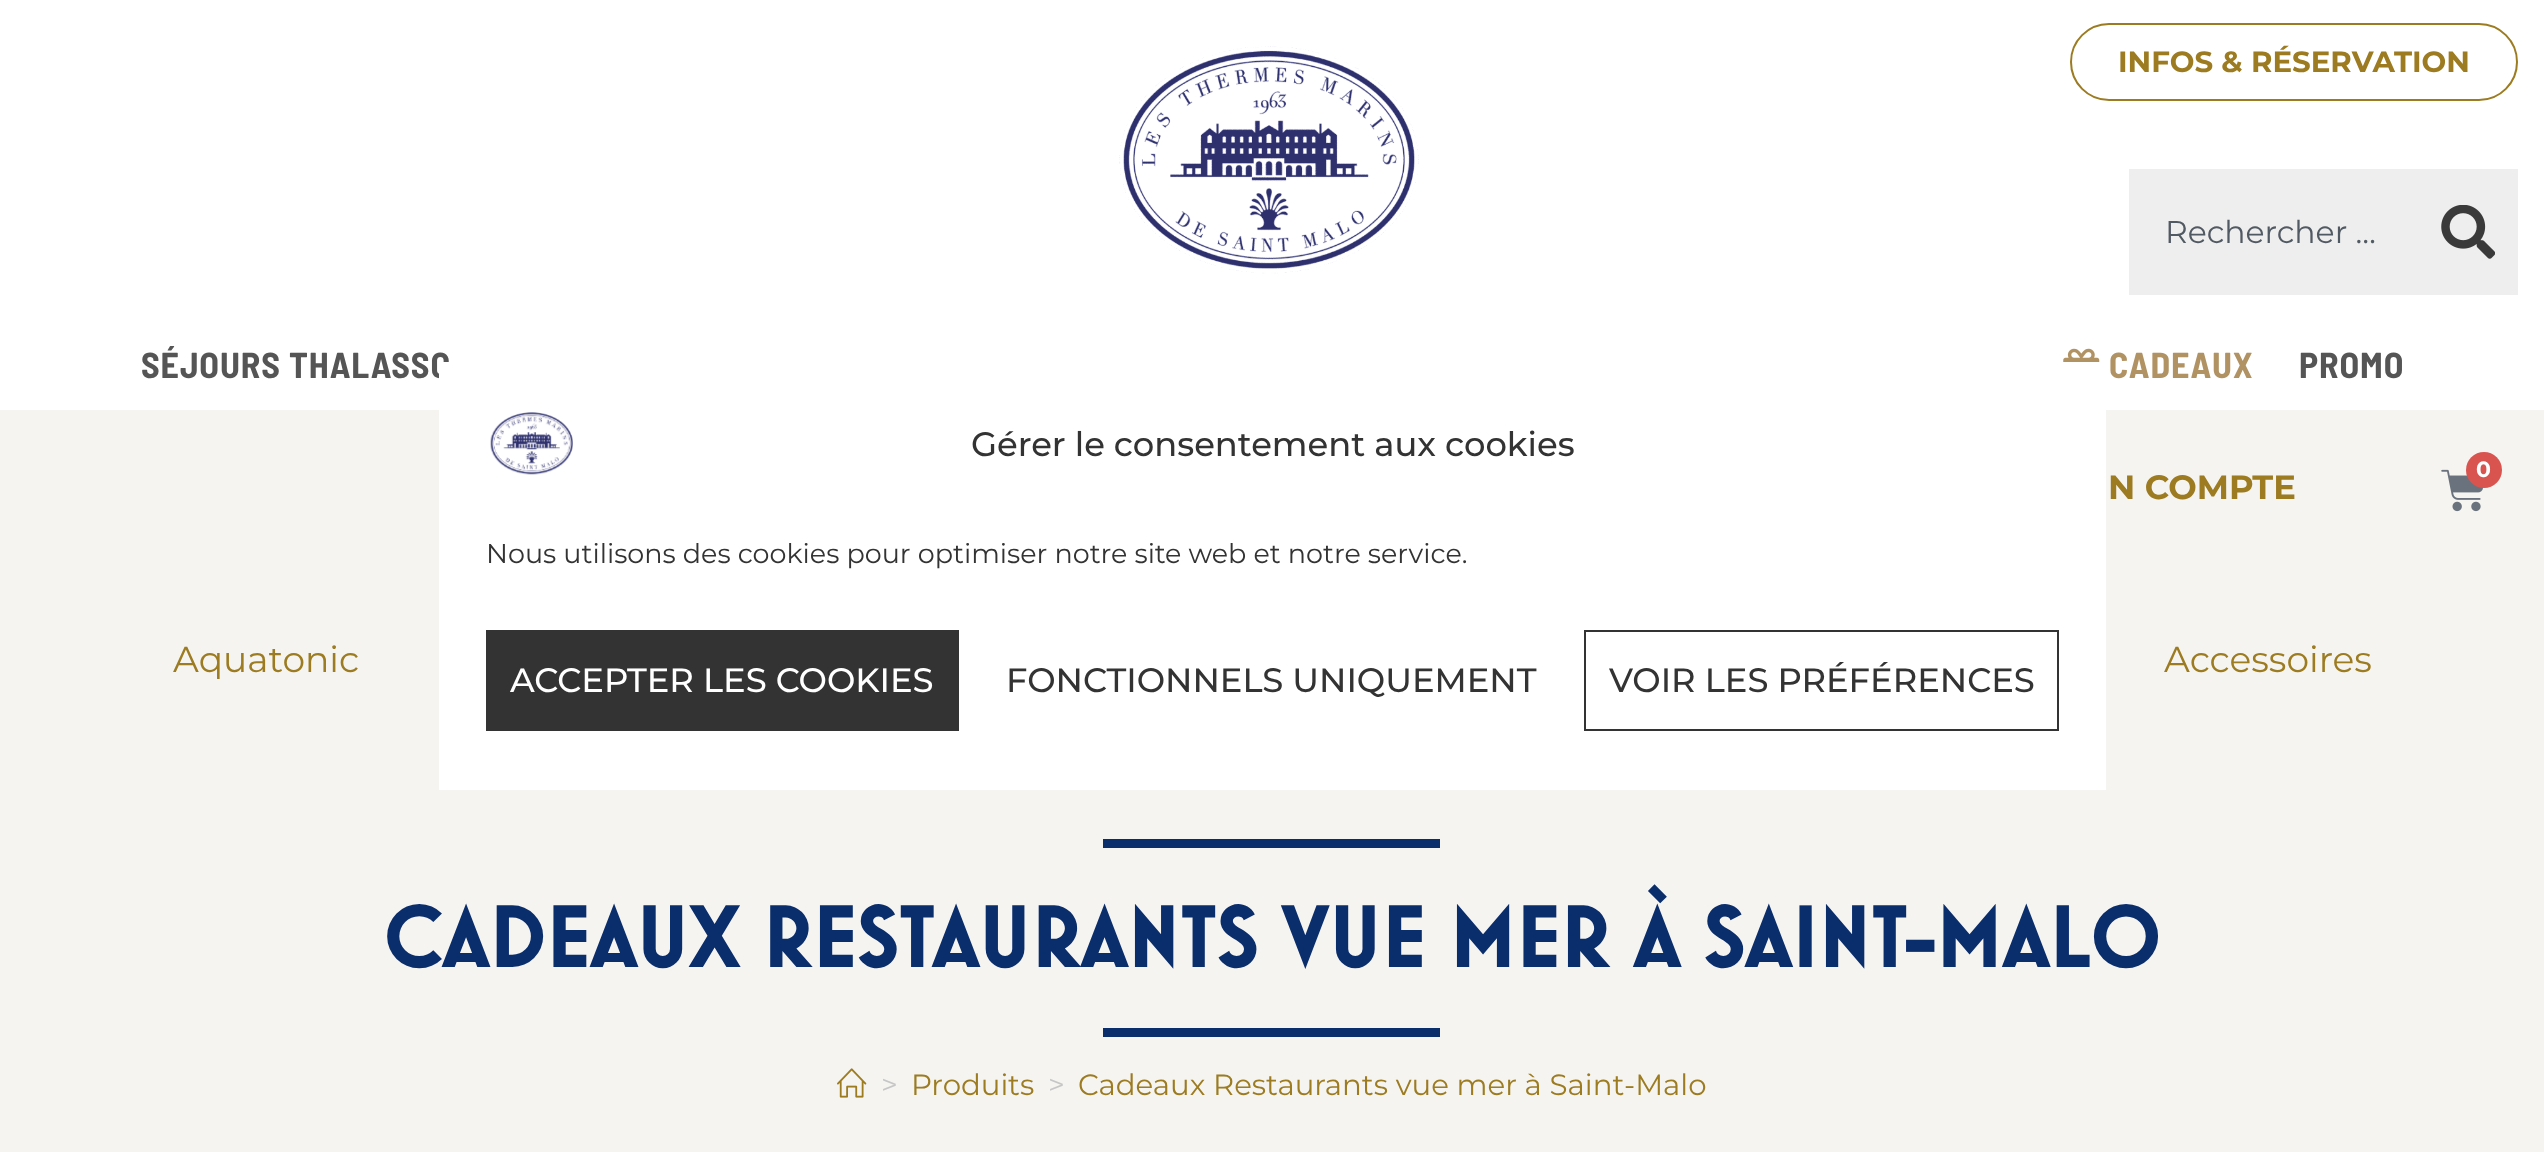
<!DOCTYPE html>
<meta charset="utf-8">
<style>body { margin: 0 } canvas { display: block }</style>
<canvas id="canvas" width="2544" height="1152"></canvas>
<img id="img1" src="img_01.png" hidden>
<img id="img2" src="img_02.png" hidden>
<img id="img3" src="img_03.png" hidden>
<img id="img4" src="img_04.png" hidden>
<img id="img5" src="img_05.png" hidden>
<img id="img6" src="img_06.png" hidden>
<script>
window.onload = function () {
	const canvas = document.getElementById("canvas");
	const ctx = canvas.getContext("2d");
	ctx.miterLimit = 4;
	ctx.fontKerning = "normal";
	function txt(s, x, y) {
		ctx.fillText(s, x, y);
	}
	function fill(x, y, w, h) {
		ctx.fillRect(x, y, w, h);
	}
	function img(id, x, y, w, h) {
		ctx.drawImage(document.getElementById(id), x, y, w, h);
	}

	ctx.fillStyle = "#F5F4F0";
	fill(0, 0, 2544, 1152);
	ctx.fillStyle = "#FFFFFF";
	fill(0, 0, 2544, 410);
	img("img1", 1119, 46, 300, 228);
	ctx.beginPath();
	ctx.roundRect(2071, 24, 446, 76, 38);
	ctx.strokeStyle = "#9C7B21";
	ctx.lineWidth = 2;
	ctx.stroke();
	ctx.fillStyle = "#EEEEEE";
	fill(2129, 169, 389, 126);
	img("img2", 2441, 205, 54, 54);
	img("img3", 2063, 348, 37, 14);
	img("img4", 2441, 469, 43, 43);
	ctx.fillStyle = "#D9534F";
	ctx.beginPath();
	ctx.arc(2484, 470, 18, 0, Math.PI * 2);
	ctx.fill();
	ctx.fillStyle = "#0A2D6C";
	fill(1103, 839, 337, 9);
	fill(1103, 1028, 337, 9);
	img("img5", 837, 1068, 30, 30);
	ctx.font = "bold 29.25px Montserrat";
	ctx.fillStyle = "#9C7B21";
	txt("INFOS & RÉSERVATION", 2118, 72);
	ctx.font = "31.5px Montserrat";
	ctx.fillStyle = "#515962";
	txt("Rechercher …", 2165, 243);
	ctx.letterSpacing = "0.9px";
	ctx.font = "bold 36px Barlow Semi Condensed";
	ctx.fillStyle = "#555555";
	txt("SÉJOURS THALASSO", 141, 378);
	ctx.fillStyle = "#B19263";
	txt("CADEAUX", 2109, 378);
	ctx.fillStyle = "#555555";
	txt("PROMO", 2299, 378);
	ctx.letterSpacing = "0px";
	ctx.font = "bold 22px Montserrat";
	ctx.fillStyle = "#FFFFFF";
	txt("0", 2476, 477);
	ctx.font = "bold 33.75px Montserrat";
	ctx.fillStyle = "#9C7B21";
	txt("N COMPTE", 2108, 499);
	ctx.font = "36px Montserrat";
	txt("Aquatonic", 173, 672);
	txt("Accessoires", 2164, 672);
	ctx.font = "bold 90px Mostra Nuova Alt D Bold";
	ctx.fillStyle = "#0A2D6C";
	txt("CADEAUX RESTAURANTS VUE MER À SAINT-MALO", 384, 967);
	ctx.font = "29.25px Montserrat";
	ctx.fillStyle = "#C6C6C6";
	txt(">", 881, 1095);
	ctx.fillStyle = "#9C7B21";
	txt("Produits", 911, 1095);
	ctx.fillStyle = "#C6C6C6";
	txt(">", 1048, 1095);
	ctx.fillStyle = "#9C7B21";
	txt("Cadeaux Restaurants vue mer à Saint-Malo", 1078, 1095);
	ctx.fillStyle = "#FFFFFF";
	fill(439, 362, 1667, 428);
	img("img6", 490, 412, 83, 63);
	ctx.font = "500 33.75px Montserrat";
	ctx.fillStyle = "#333333";
	txt("Gérer le consentement aux cookies", 971, 456);
	ctx.font = "27px Montserrat";
	txt("Nous utilisons des cookies pour optimiser notre site web et notre service.", 486, 563);
	fill(486, 630, 473, 101);
	ctx.font = "500 33.75px Montserrat";
	ctx.fillStyle = "#FFFFFF";
	txt("ACCEPTER LES COOKIES", 510, 692);
	ctx.fillStyle = "#333333";
	txt("FONCTIONNELS UNIQUEMENT", 1006, 692);
	ctx.strokeStyle = "#333333";
	ctx.strokeRect(1585, 631, 473, 99);
	txt("VOIR LES PRÉFÉRENCES", 1609, 692);
};
</script>
